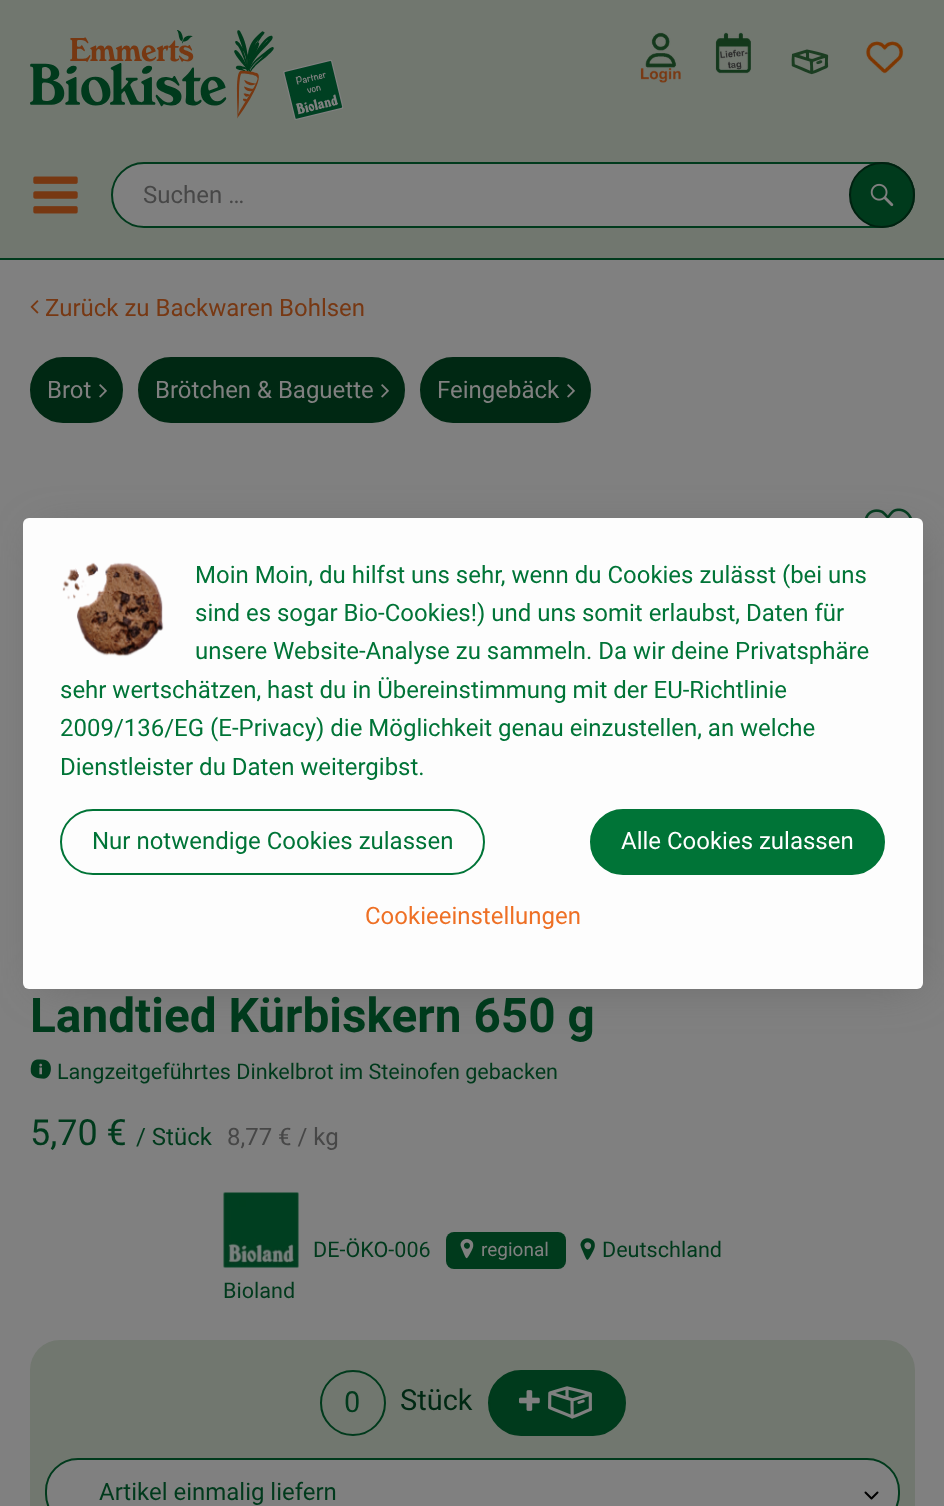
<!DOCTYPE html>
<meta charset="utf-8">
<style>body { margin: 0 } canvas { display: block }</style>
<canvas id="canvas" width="944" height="1506"></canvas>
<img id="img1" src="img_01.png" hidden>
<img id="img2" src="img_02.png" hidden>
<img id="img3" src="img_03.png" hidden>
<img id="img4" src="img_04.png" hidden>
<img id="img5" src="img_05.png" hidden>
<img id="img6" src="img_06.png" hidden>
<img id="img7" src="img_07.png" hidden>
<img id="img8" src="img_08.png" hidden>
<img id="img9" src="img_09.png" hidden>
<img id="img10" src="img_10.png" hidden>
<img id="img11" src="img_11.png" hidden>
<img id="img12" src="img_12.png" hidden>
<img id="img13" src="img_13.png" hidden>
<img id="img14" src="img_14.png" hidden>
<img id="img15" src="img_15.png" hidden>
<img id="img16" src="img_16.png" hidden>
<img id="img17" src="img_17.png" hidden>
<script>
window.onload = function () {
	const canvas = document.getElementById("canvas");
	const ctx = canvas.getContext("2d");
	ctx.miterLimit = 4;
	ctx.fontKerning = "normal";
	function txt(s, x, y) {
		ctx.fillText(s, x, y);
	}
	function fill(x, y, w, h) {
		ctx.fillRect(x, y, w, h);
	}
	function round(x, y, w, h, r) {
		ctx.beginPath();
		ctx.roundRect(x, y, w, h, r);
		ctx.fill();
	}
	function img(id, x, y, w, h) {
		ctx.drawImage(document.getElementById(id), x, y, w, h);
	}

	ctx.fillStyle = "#808080";
	fill(0, 0, 944, 1506);
	ctx.fillStyle = "#71776F";
	fill(0, 0, 944, 258);
	img("img1", 30, 30, 314, 90);
	img("img2", 640, 32, 41, 51);
	img("img3", 715, 32, 36, 42);
	img("img4", 791, 49, 38, 26);
	img("img5", 866, 41, 38, 33);
	img("img6", 33, 176, 45, 38);
	ctx.fillStyle = "#808080";
	ctx.beginPath();
	ctx.roundRect(112, 163, 802, 64, 32);
	ctx.fill();
	ctx.strokeStyle = "#003A1C";
	ctx.lineWidth = 2;
	ctx.stroke();
	ctx.fillStyle = "#003A1C";
	ctx.beginPath();
	ctx.arc(882, 195, 32, 0, Math.PI * 2);
	ctx.fill();
	ctx.strokeStyle = "#002110";
	ctx.stroke();
	img("img7", 870, 183, 24, 24);
	fill(0, 258, 944, 2);
	img("img8", 30, 300, 9, 14);
	ctx.fillStyle = "#002813";
	ctx.beginPath();
	ctx.roundRect(31, 358, 91, 64, 32);
	ctx.fill();
	ctx.strokeStyle = "#002813";
	ctx.stroke();
	img("img9", 99, 384, 8, 14);
	ctx.beginPath();
	ctx.roundRect(139, 358, 265, 64, 32);
	ctx.fill();
	ctx.stroke();
	img("img9", 381, 384, 8, 14);
	ctx.beginPath();
	ctx.roundRect(421, 358, 169, 64, 32);
	ctx.fill();
	ctx.stroke();
	img("img9", 567, 384, 8, 14);
	img("img10", 865, 508, 47, 10);
	img("img11", 30, 1059, 21, 20);
	ctx.fillStyle = "#003A1C";
	round(446, 1232, 120, 37, 8);
	img("img12", 460, 1239, 14, 20);
	img("img13", 580, 1238, 15, 22);
	img("img14", 223, 1192, 76, 76);
	ctx.fillStyle = "#71776F";
	round(30, 1340, 885, 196, 30);
	ctx.beginPath();
	ctx.arc(353, 1403, 32, 0, Math.PI * 2);
	ctx.strokeStyle = "#003A1C";
	ctx.stroke();
	ctx.fillStyle = "#003A1C";
	ctx.beginPath();
	ctx.roundRect(489, 1371, 136, 64, 32);
	ctx.fill();
	ctx.stroke();
	img("img15", 519, 1390, 21, 21);
	img("img16", 548, 1386, 44, 33);
	ctx.fillStyle = "#808080";
	ctx.beginPath();
	ctx.roundRect(46, 1459, 853, 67, 32);
	ctx.fill();
	ctx.stroke();
	ctx.beginPath();
	ctx.moveTo(865.5, 1492.5);
	ctx.lineTo(871.5, 1498.5);
	ctx.lineTo(877.5, 1492.5);
	ctx.strokeStyle = "#000000";
	ctx.lineCap = "round";
	ctx.lineJoin = "round";
	ctx.stroke();
	ctx.fillStyle = "rgba(83, 83, 83, 0.5)";
	ctx.filter = "blur(22.5px)";
	ctx.beginPath();
	ctx.rect(41, 536, 876, 447);
	ctx.fill();
	ctx.filter = "none";
	ctx.fillStyle = "#FDFDFD";
	round(23, 518, 900, 471, 6);
	img("img17", 62, 562, 102, 95);
	ctx.beginPath();
	ctx.roundRect(61, 810, 423, 64, 32);
	ctx.strokeStyle = "#007437";
	ctx.lineJoin = "miter";
	ctx.stroke();
	ctx.fillStyle = "#007437";
	ctx.beginPath();
	ctx.roundRect(591, 810, 293, 64, 32);
	ctx.fill();
	ctx.stroke();
	ctx.font = "24px Roboto";
	ctx.fillStyle = "#474747";
	txt("Suchen …", 143, 203);
	ctx.fillStyle = "#773813";
	txt("Zurück zu Backwaren Bohlsen", 45, 316);
	ctx.fillStyle = "#808080";
	txt("Brot", 47, 398);
	txt("Brötchen & Baguette", 155, 398);
	txt("Feingebäck", 437, 398);
	ctx.font = "bold 47.75px Roboto";
	ctx.fillStyle = "#003A1C";
	txt("Landtied Kürbiskern 650 g", 30, 1032);
	ctx.font = "21.6px Roboto";
	txt("Langzeitgeführtes Dinkelbrot im Steinofen gebacken", 57, 1079);
	ctx.font = "36px Roboto";
	txt("5,70 €", 30, 1145);
	ctx.font = "24px Roboto";
	txt("/ Stück", 136, 1145);
	ctx.fillStyle = "#474747";
	txt("8,77 € / kg", 227, 1145);
	ctx.font = "21.6px Roboto";
	ctx.fillStyle = "#003A1C";
	txt("DE-ÖKO-006", 313, 1257);
	ctx.font = "19px Roboto";
	ctx.fillStyle = "#808080";
	txt("regional", 481, 1256);
	ctx.font = "21.6px Roboto";
	ctx.fillStyle = "#003A1C";
	txt("Deutschland", 602, 1257);
	txt("Bioland", 223, 1298);
	ctx.font = "29px Roboto";
	txt("0", 344, 1412);
	ctx.fillStyle = "#002813";
	txt("Stück", 400, 1410);
	ctx.font = "24px Roboto";
	ctx.fillStyle = "#003A1C";
	txt("Artikel einmalig liefern", 99, 1500);
	ctx.fillStyle = "#007437";
	txt("Moin Moin, du hilfst uns sehr, wenn du Cookies zulässt (bei uns", 195, 583);
	txt("sind es sogar Bio-Cookies!) und uns somit erlaubst, Daten für", 195, 621);
	txt("unsere Website-Analyse zu sammeln. Da wir deine Privatsphäre", 195, 659);
	txt("sehr wertschätzen, hast du in Übereinstimmung mit der EU-Richtlinie", 60, 698);
	txt("2009/136/EG (E-Privacy) die Möglichkeit genau einzustellen, an welche", 60, 736);
	txt("Dienstleister du Daten weitergibst.", 60, 775);
	txt("Nur notwendige Cookies zulassen", 92, 849);
	ctx.fillStyle = "#FFFFFF";
	txt("Alle Cookies zulassen", 621, 849);
	ctx.fillStyle = "#EE7025";
	txt("Cookieeinstellungen", 365, 924);
};
</script>
